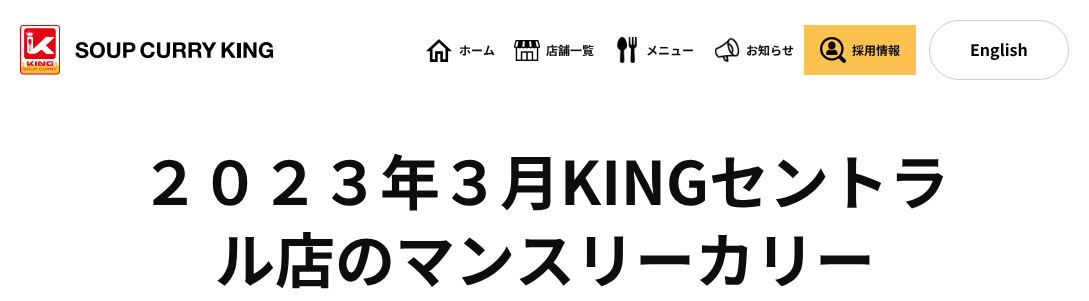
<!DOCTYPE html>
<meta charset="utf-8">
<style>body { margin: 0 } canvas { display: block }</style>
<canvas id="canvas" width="1089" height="301"></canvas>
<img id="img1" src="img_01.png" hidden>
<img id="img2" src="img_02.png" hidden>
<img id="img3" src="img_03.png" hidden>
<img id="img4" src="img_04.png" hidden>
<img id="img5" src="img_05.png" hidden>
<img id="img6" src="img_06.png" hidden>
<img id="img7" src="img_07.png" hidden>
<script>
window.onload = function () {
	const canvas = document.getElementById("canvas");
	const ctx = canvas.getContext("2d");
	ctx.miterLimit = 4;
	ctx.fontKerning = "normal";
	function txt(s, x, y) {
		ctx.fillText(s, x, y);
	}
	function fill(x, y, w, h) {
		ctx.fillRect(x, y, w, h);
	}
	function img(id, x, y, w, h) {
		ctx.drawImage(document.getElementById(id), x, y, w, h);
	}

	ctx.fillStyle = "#FFFFFF";
	fill(0, 0, 1089, 301);
	img("img1", 20, 25, 40, 50);
	img("img2", 75, 42, 199, 17);
	img("img3", 426, 39, 26, 23);
	img("img4", 514, 40, 26, 21);
	img("img5", 617, 37, 20, 26);
	img("img6", 714, 37, 26, 26);
	ctx.fillStyle = "#FEC250";
	fill(804, 25, 112, 50);
	img("img7", 820, 37, 26, 26);
	ctx.beginPath();
	ctx.roundRect(929.5, 20.5, 139, 59, 29.5);
	ctx.strokeStyle = "#CCCCCC";
	ctx.stroke();
	ctx.font = "bold 12px Noto Sans JP";
	ctx.fillStyle = "#0D0D0D";
	txt("ホーム", 459, 55);
	txt("店舗一覧", 546, 55);
	txt("メニュー", 646, 55);
	txt("お知らせ", 746, 55);
	txt("採用情報", 852, 55);
	ctx.font = "bold 16px Noto Sans JP";
	ctx.fillStyle = "#000000";
	txt("English", 970, 56);
	ctx.font = "bold 60px Noto Sans JP";
	ctx.fillStyle = "#0D0D0D";
	txt("２０２３年３月KINGセントラ", 140, 205);
	txt("ル店のマンスリーカリー", 215, 283);
};
</script>
